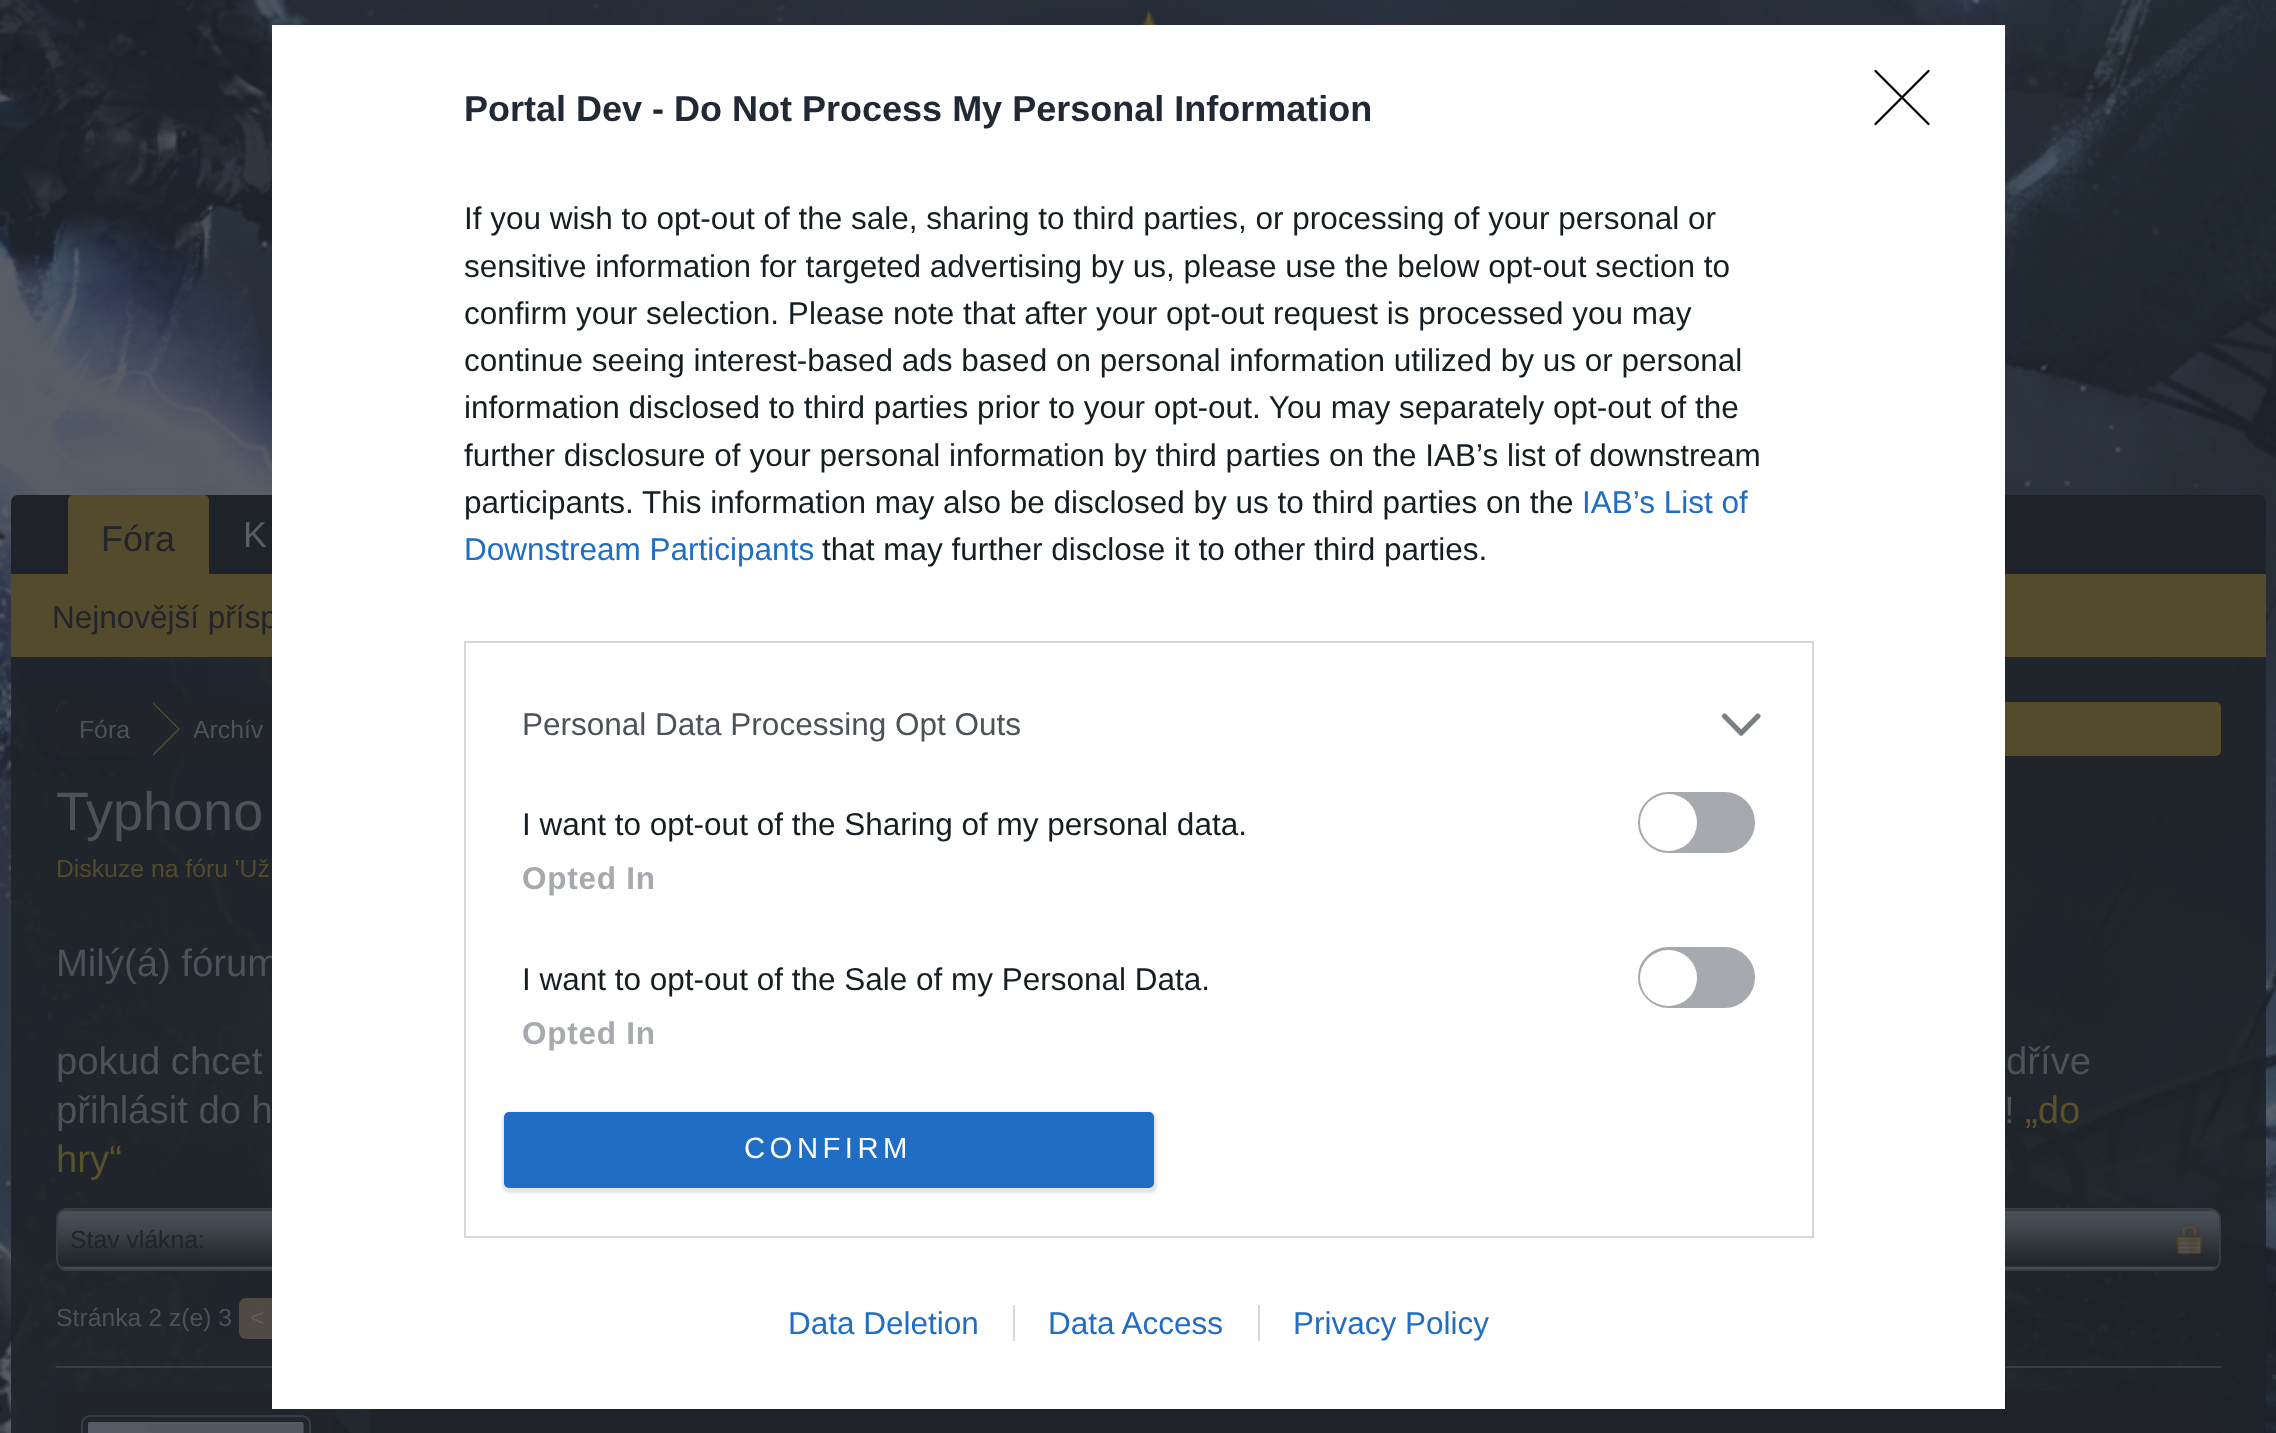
<!DOCTYPE html>
<meta charset="utf-8">
<style>body { margin: 0 } canvas { display: block }</style>
<canvas id="canvas" width="2276" height="1433"></canvas>
<img id="img1" src="img_01.png" hidden>
<img id="img2" src="img_03.png" hidden>
<img id="img3" src="img_04.png" hidden>
<img id="img4" src="img_05.png" hidden>
<img id="img5" src="img_06.png" hidden>
<img id="img6" src="img_02.png" hidden>
<script>
window.onload = function () {
	const canvas = document.getElementById("canvas");
	const ctx = canvas.getContext("2d");
	ctx.miterLimit = 4;
	ctx.fontKerning = "normal";
	function txt(s, x, y) {
		ctx.fillText(s, x, y);
	}
	function fill(x, y, w, h) {
		ctx.fillRect(x, y, w, h);
	}
	function round(x, y, w, h, r) {
		ctx.beginPath();
		ctx.roundRect(x, y, w, h, r);
		ctx.fill();
	}
	function img(id, x, y, w, h) {
		ctx.drawImage(document.getElementById(id), x, y, w, h);
	}

	ctx.fillStyle = "#FFFFFF";
	fill(0, 0, 2276, 1433);
	img("img1", 0, 0, 2276, 1433);
	img("img2", 1140, 10, 18, 15);
	ctx.fillStyle = "#1F2229";
	ctx.beginPath();
	ctx.roundRect(11, 495, 2255, 83, [7, 7, 0, 0]);
	ctx.fill();
	ctx.fillStyle = "#534B2C";
	fill(11, 574, 2255, 83);
	ctx.beginPath();
	ctx.roundRect(68, 495, 141, 83, [5, 5, 0, 0]);
	ctx.fill();
	ctx.fillStyle = "rgba(31, 34, 41, 0.9)";
	fill(11, 657, 2255, 776);
	ctx.fillStyle = "#534B2C";
	ctx.beginPath();
	ctx.roundRect(56, 702, 2165, 54, [11, 5, 5, 11]);
	ctx.fill();
	ctx.save();
	ctx.beginPath();
	ctx.roundRect(56, 702, 2165, 54, [11, 5, 5, 11]);
	ctx.clip();
	ctx.fillStyle = "#21242A";
	ctx.beginPath();
	ctx.roundRect(56, 702, 97, 56, [11, 0, 0, 11]);
	ctx.fill();
	ctx.restore();
	ctx.fillStyle = "#21242A";
	fill(153, 702, 119, 54);
	ctx.fillStyle = "#534B2C";
	ctx.beginPath();
	ctx.moveTo(153, 756);
	ctx.lineTo(153, 702);
	ctx.lineTo(180, 729);
	ctx.closePath();
	ctx.fill();
	ctx.fillStyle = "#21242A";
	ctx.beginPath();
	ctx.moveTo(151, 756);
	ctx.lineTo(151, 702);
	ctx.lineTo(178, 729);
	ctx.closePath();
	ctx.fill();
	round(56, 1208, 2165, 63, 11);
	img("img3", 56, 1210, 2165, 62);
	ctx.beginPath();
	ctx.roundRect(57, 1209, 2163, 61, 10);
	ctx.strokeStyle = "#373D45";
	ctx.lineWidth = 2;
	ctx.stroke();
	img("img4", 2173, 1223, 33, 35);
	ctx.fillStyle = "#4F4A43";
	ctx.beginPath();
	ctx.roundRect(240, 1299, 128, 39, 6);
	ctx.fill();
	ctx.strokeStyle = "#4F4A43";
	ctx.stroke();
	ctx.fillStyle = "#373D45";
	fill(56, 1366, 2165, 2);
	ctx.fillStyle = "#21242A";
	round(56, 1391, 279, 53, 11);
	ctx.beginPath();
	ctx.roundRect(82, 1416, 228, 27, 8);
	ctx.strokeStyle = "#373D45";
	ctx.stroke();
	img("img5", 87, 1422, 217, 11);
	ctx.fillStyle = "#1F2229";
	ctx.beginPath();
	ctx.moveTo(333, 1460);
	ctx.lineTo(333, 1415);
	ctx.lineTo(356, 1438);
	ctx.closePath();
	ctx.fill();
	fill(371, 1391, 1850, 42);
	ctx.font = "36px Liberation Sans";
	ctx.fillStyle = "#595E67";
	txt("K", 243, 547);
	ctx.fillStyle = "#21242A";
	txt("Fóra", 101, 551);
	ctx.font = "31.5px Liberation Sans";
	txt("Nejnovější přísp", 52, 628);
	ctx.font = "24.75px Liberation Sans";
	ctx.fillStyle = "#4C525A";
	txt("Fóra", 79, 738);
	ctx.save();
	ctx.beginPath();
	ctx.rect(194, 702, 69, 54);
	ctx.clip();
	txt("Archív", 193, 738);
	ctx.restore();
	ctx.font = "54px Liberation Sans";
	txt("Typhono", 56, 830);
	ctx.font = "24.75px Liberation Sans";
	ctx.fillStyle = "#534B2C";
	txt("Diskuze na fóru 'Už", 56, 877);
	ctx.font = "38.25px Liberation Sans";
	ctx.fillStyle = "#4C525A";
	txt("Milý(á) fórum", 56, 976);
	ctx.fillStyle = "#FFFFFF";
	fill(272, 25, 1733, 1384);
	ctx.strokeStyle = "#D8D8D8";
	ctx.strokeRect(465, 642, 1348, 595);
	ctx.fillStyle = "#A6A9AE";
	ctx.beginPath();
	ctx.roundRect(1639, 948, 115, 59, 29.5);
	ctx.fill();
	ctx.strokeStyle = "#A6A9AE";
	ctx.stroke();
	ctx.fillStyle = "#FFFFFF";
	round(1640, 950, 57, 56, 28);
	ctx.fillStyle = "#A6A9AE";
	ctx.beginPath();
	ctx.roundRect(1639, 793, 115, 59, 29.5);
	ctx.fill();
	ctx.stroke();
	ctx.fillStyle = "#FFFFFF";
	ctx.beginPath();
	ctx.arc(1668.5, 822.5, 28.5, 0, Math.PI * 2);
	ctx.fill();
	img("img6", 1721, 713, 40, 23);
	ctx.beginPath();
	ctx.moveTo(1875.5, 71);
	ctx.lineTo(1928.5, 124);
	ctx.moveTo(1928.5, 71);
	ctx.lineTo(1875.5, 124);
	ctx.strokeStyle = "#000000";
	ctx.lineWidth = 2.3;
	ctx.lineCap = "round";
	ctx.lineJoin = "round";
	ctx.stroke();
	ctx.fillStyle = "rgba(0, 0, 0, 0.1)";
	ctx.filter = "blur(1px)";
	ctx.beginPath();
	ctx.roundRect(502, 1112, 655, 81, 7);
	ctx.fill();
	ctx.filter = "none";
	ctx.fillStyle = "#206DC5";
	round(504, 1112, 650, 76, 5);
	ctx.letterSpacing = "4.5px";
	ctx.font = "29.25px Liberation Sans";
	ctx.fillStyle = "#FFFFFF";
	txt("CONFIRM", 744, 1158);
	ctx.letterSpacing = "0.75px";
	ctx.font = "bold 31.5px Liberation Sans";
	ctx.fillStyle = "#A6A9AE";
	txt("Opted In", 522, 1044);
	ctx.letterSpacing = "0px";
	ctx.font = "31.5px Liberation Sans";
	ctx.fillStyle = "#141E23";
	txt("I want to opt-out of the Sale of my Personal Data.", 522, 990);
	ctx.letterSpacing = "0.75px";
	ctx.font = "bold 31.5px Liberation Sans";
	ctx.fillStyle = "#A6A9AE";
	txt("Opted In", 522, 889);
	ctx.letterSpacing = "0px";
	ctx.font = "31.5px Liberation Sans";
	ctx.fillStyle = "#141E23";
	txt("I want to opt-out of the Sharing of my personal data.", 522, 835);
	ctx.fillStyle = "#4C525A";
	txt("Personal Data Processing Opt Outs", 522, 735);
	ctx.fillStyle = "#141E23";
	txt("that may further disclose it to other third parties.", 822, 560);
	ctx.fillStyle = "#206DC5";
	txt("Downstream Participants", 464, 560);
	txt("IAB’s List of", 1582, 513);
	ctx.fillStyle = "#141E23";
	txt("participants. This information may also be disclosed by us to third parties on the", 464, 513);
	txt("further disclosure of your personal information by third parties on the IAB’s list of downstream", 464, 466);
	txt("information disclosed to third parties prior to your opt-out. You may separately opt-out of the", 464, 418);
	txt("continue seeing interest-based ads based on personal information utilized by us or personal", 464, 371);
	txt("confirm your selection. Please note that after your opt-out request is processed you may", 464, 324);
	txt("sensitive information for targeted advertising by us, please use the below opt-out section to", 464, 277);
	txt("If you wish to opt-out of the sale, sharing to third parties, or processing of your personal or", 464, 229);
	ctx.fillStyle = "#206DC5";
	txt("Privacy Policy", 1293, 1334);
	ctx.fillStyle = "#D8D8D8";
	fill(1258, 1305, 2, 36);
	ctx.fillStyle = "#206DC5";
	txt("Data Access", 1048, 1334);
	ctx.fillStyle = "#D8D8D8";
	fill(1013, 1305, 2, 36);
	ctx.fillStyle = "#206DC5";
	txt("Data Deletion", 788, 1334);
	ctx.font = "bold 36px Liberation Sans";
	ctx.fillStyle = "#212934";
	txt("Portal Dev - Do Not Process My Personal Information", 464, 121);
	ctx.font = "38.25px Liberation Sans";
	ctx.fillStyle = "#4C525A";
	txt("pokud chcet", 56, 1074);
	txt("dříve", 2006, 1074);
	txt("přihlásit do h", 56, 1123);
	txt("!", 2004, 1123);
	ctx.fillStyle = "#595128";
	txt("„do", 2025, 1123);
	txt("hry“", 56, 1172);
	ctx.font = "24.75px Liberation Sans";
	ctx.fillStyle = "#21242A";
	txt("Stav vlákna:", 70, 1248);
	ctx.fillStyle = "#4C525A";
	txt("Stránka 2 z(e) 3", 56, 1326);
	ctx.fillStyle = "#595E67";
	txt("<", 250, 1326);
};
</script>
